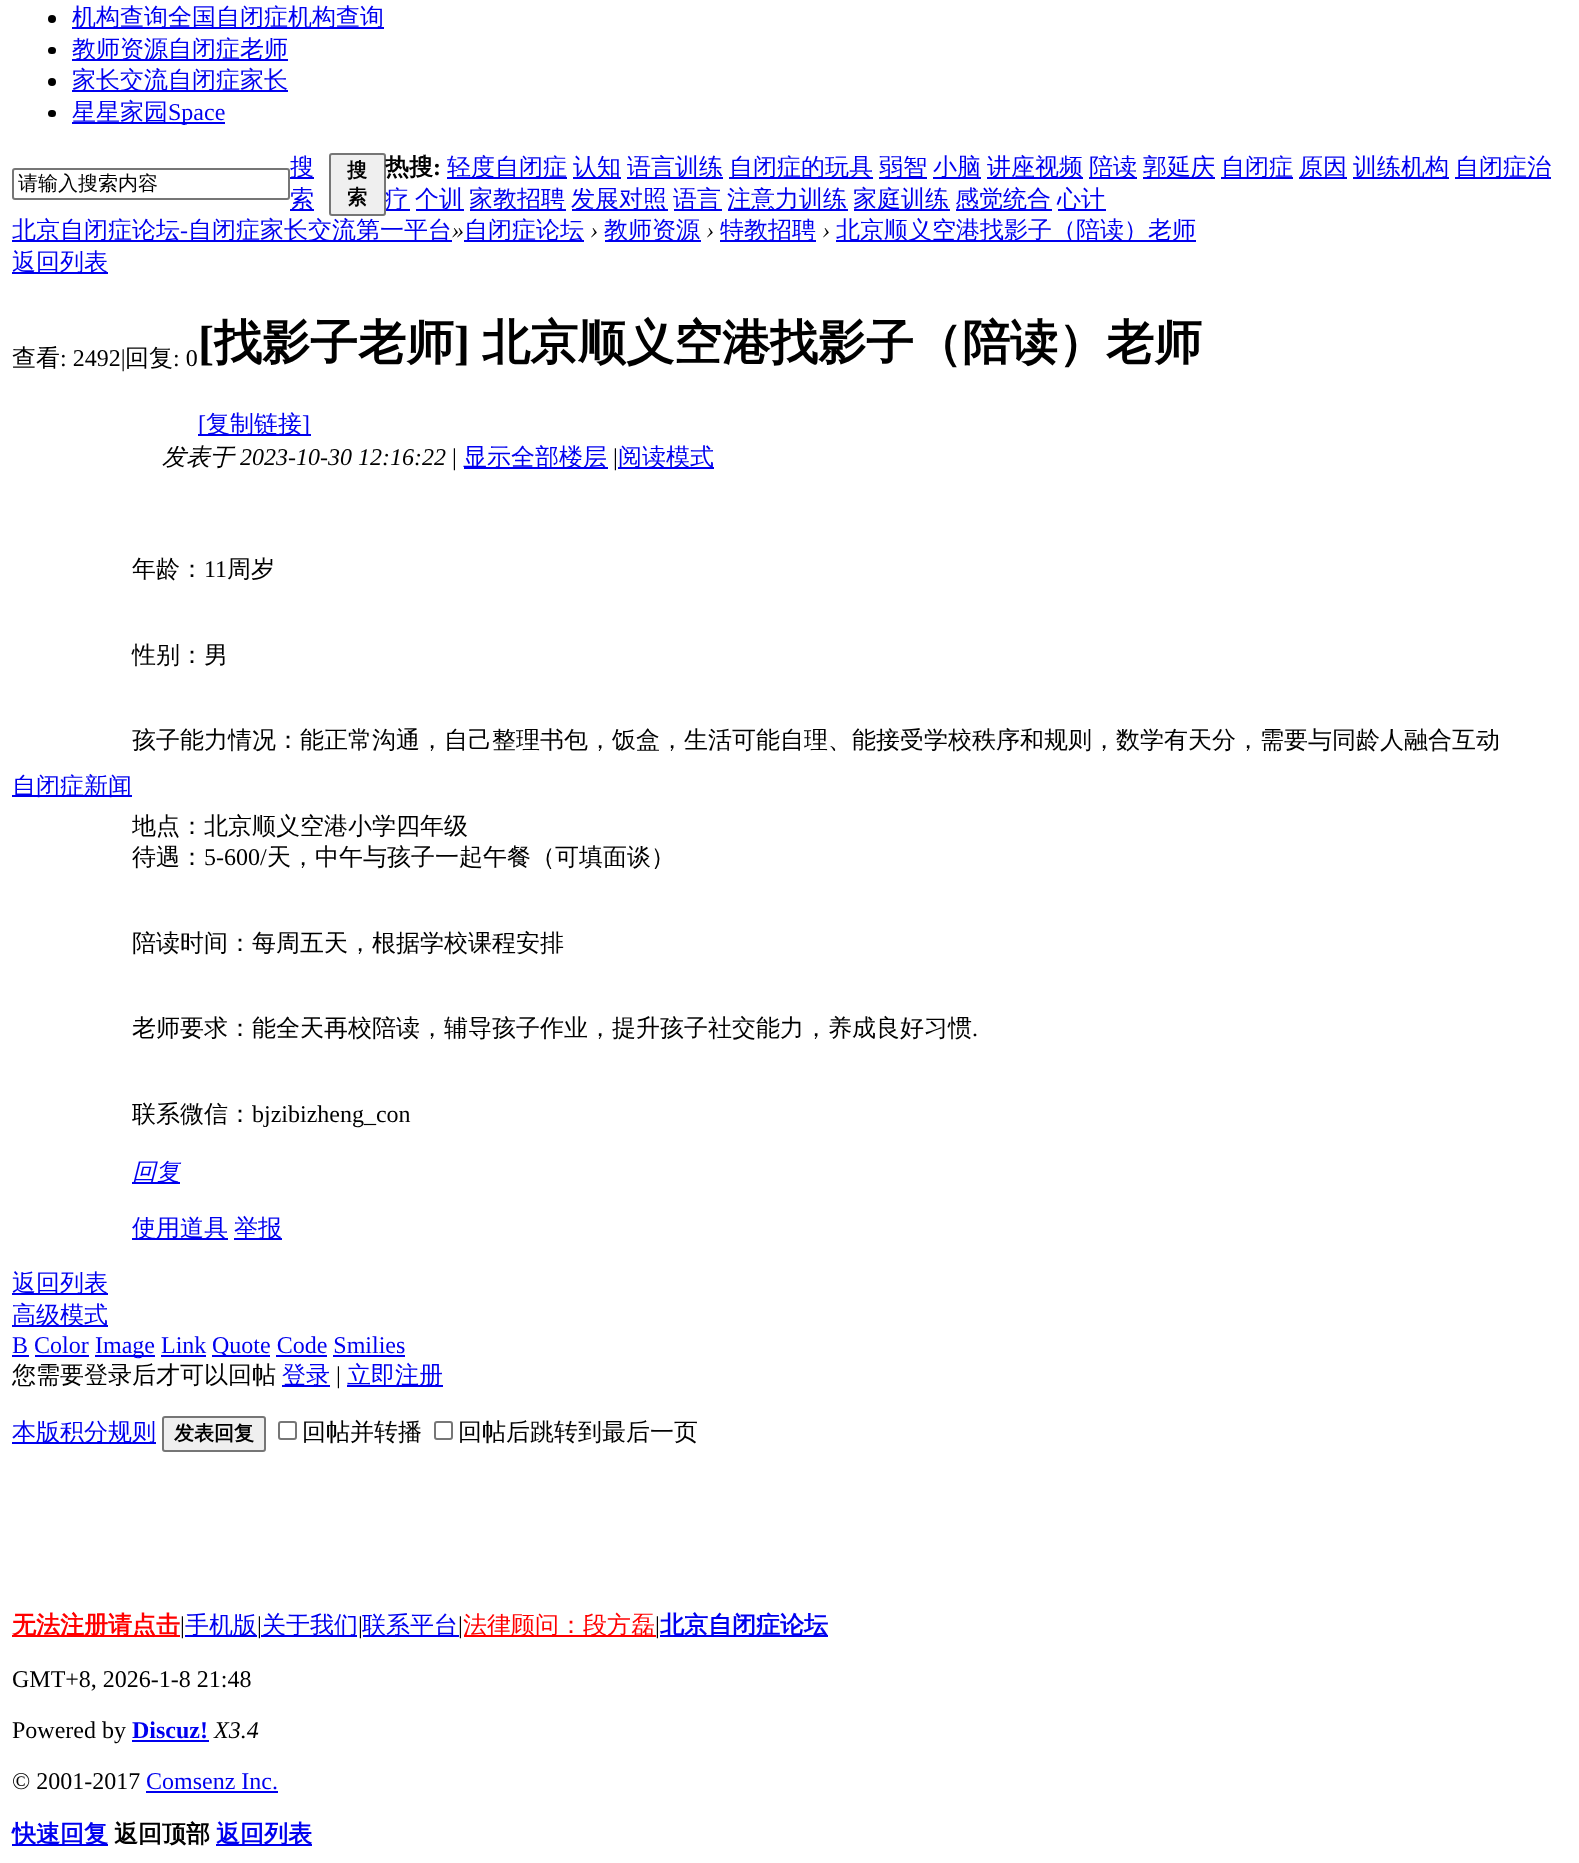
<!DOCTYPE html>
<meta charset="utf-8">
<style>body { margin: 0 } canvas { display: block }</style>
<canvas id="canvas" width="1579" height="1863"></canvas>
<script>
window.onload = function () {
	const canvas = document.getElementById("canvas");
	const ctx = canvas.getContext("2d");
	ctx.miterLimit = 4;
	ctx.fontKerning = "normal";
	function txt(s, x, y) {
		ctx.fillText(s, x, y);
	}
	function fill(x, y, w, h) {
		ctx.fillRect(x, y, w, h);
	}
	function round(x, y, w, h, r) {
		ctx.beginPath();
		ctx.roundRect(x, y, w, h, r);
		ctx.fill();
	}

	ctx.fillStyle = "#FFFFFF";
	fill(0, 0, 1579, 1863);
	ctx.fillStyle = "#000000";
	ctx.beginPath();
	ctx.arc(52, 19, 4, 0, Math.PI * 2);
	ctx.fill();
	ctx.fillStyle = "#0000EE";
	fill(72, 27, 312, 2);
	ctx.fillStyle = "#000000";
	round(48, 47, 8, 7, 3.5);
	ctx.fillStyle = "#0000EE";
	fill(72, 59, 216, 2);
	ctx.fillStyle = "#000000";
	ctx.beginPath();
	ctx.arc(52, 82, 4, 0, Math.PI * 2);
	ctx.fill();
	ctx.fillStyle = "#0000EE";
	fill(72, 90, 216, 2);
	ctx.fillStyle = "#000000";
	round(48, 110, 8, 7, 3.5);
	ctx.fillStyle = "#0000EE";
	fill(72, 122, 153, 2);
	ctx.beginPath();
	ctx.roundRect(13, 169, 276, 30, 2);
	ctx.strokeStyle = "#767676";
	ctx.lineWidth = 2;
	ctx.stroke();
	fill(290, 177, 24, 2);
	fill(290, 209, 24, 2);
	ctx.fillStyle = "#EFEFEF";
	ctx.beginPath();
	ctx.roundRect(330, 154, 55, 61, 2);
	ctx.fill();
	ctx.stroke();
	ctx.fillStyle = "#0000EE";
	fill(447, 177, 120, 2);
	fill(573, 177, 48, 2);
	fill(627, 177, 96, 2);
	fill(729, 177, 144, 2);
	fill(879, 177, 48, 2);
	fill(933, 177, 48, 2);
	fill(987, 177, 96, 2);
	fill(1089, 177, 48, 2);
	fill(1143, 177, 72, 2);
	fill(1221, 177, 72, 2);
	fill(1299, 177, 48, 2);
	fill(1353, 177, 96, 2);
	fill(1455, 177, 96, 2);
	fill(386, 209, 24, 2);
	fill(416, 209, 48, 2);
	fill(470, 209, 96, 2);
	fill(572, 209, 96, 2);
	fill(674, 209, 48, 2);
	fill(728, 209, 120, 2);
	fill(854, 209, 96, 2);
	fill(956, 209, 96, 2);
	fill(1058, 209, 48, 2);
	fill(12, 240, 440, 2);
	fill(464, 240, 120, 2);
	fill(605, 240, 96, 2);
	fill(720, 240, 96, 2);
	fill(836, 240, 360, 2);
	fill(12, 272, 96, 2);
	fill(198, 434, 113, 2);
	fill(12, 795, 120, 2);
	fill(464, 467, 144, 2);
	fill(618, 467, 96, 2);
	fill(132, 1182, 48, 2);
	fill(132, 1238, 96, 2);
	fill(234, 1238, 48, 2);
	fill(12, 1293, 96, 2);
	fill(12, 1325, 96, 2);
	fill(12, 1355, 17, 2);
	fill(95, 1355, 60, 2);
	fill(212, 1355, 58, 2);
	fill(35, 1355, 54, 2);
	fill(161, 1355, 45, 2);
	fill(276, 1355, 51, 2);
	fill(333, 1355, 72, 2);
	fill(282, 1385, 48, 2);
	fill(347, 1385, 96, 2);
	fill(12, 1442, 144, 2);
	ctx.fillStyle = "#EFEFEF";
	ctx.beginPath();
	ctx.roundRect(163, 1417, 102, 34, 2);
	ctx.fill();
	ctx.stroke();
	ctx.beginPath();
	ctx.roundRect(279, 1422, 17, 17, 2);
	ctx.stroke();
	ctx.beginPath();
	ctx.roundRect(435, 1422, 17, 17, 2);
	ctx.stroke();
	ctx.fillStyle = "#FF0000";
	fill(12, 1635, 168, 2);
	ctx.fillStyle = "#0000EE";
	fill(185, 1635, 72, 2);
	fill(261, 1635, 96, 2);
	fill(363, 1635, 96, 2);
	ctx.fillStyle = "#FF0000";
	fill(464, 1635, 192, 2);
	ctx.fillStyle = "#0000EE";
	fill(660, 1635, 168, 2);
	fill(132, 1740, 77, 2);
	fill(146, 1791, 132, 2);
	fill(12, 1844, 96, 2);
	fill(216, 1844, 96, 2);
	ctx.font = "500 24px WenQuanYi Zen Hei";
	txt("机构查询全国自闭症机构查询", 72, 25);
	txt("教师资源自闭症老师", 72, 57);
	txt("家长交流自闭症家长", 72, 88);
	txt("星星家园", 72, 120);
	ctx.font = "24px Liberation Serif";
	txt("Space", 168, 120);
	ctx.font = "500 20px WenQuanYi Zen Hei";
	ctx.fillStyle = "#000000";
	txt("请输入搜索内容", 18, 190);
	ctx.font = "500 24px WenQuanYi Zen Hei";
	ctx.fillStyle = "#0000EE";
	txt("搜", 290, 175);
	txt("索", 290, 207);
	ctx.font = "bold 20px WenQuanYi Zen Hei";
	ctx.fillStyle = "#000000";
	txt("搜", 347, 177);
	txt("索", 347, 204);
	ctx.font = "bold 24px WenQuanYi Zen Hei";
	txt("热搜", 385, 175);
	ctx.font = "bold 24px Liberation Serif";
	txt(":", 433, 175);
	ctx.font = "500 24px WenQuanYi Zen Hei";
	ctx.fillStyle = "#0000EE";
	txt("轻度自闭症", 447, 175);
	txt("认知", 573, 175);
	txt("语言训练", 627, 175);
	txt("自闭症的玩具", 729, 175);
	txt("弱智", 879, 175);
	txt("小脑", 933, 175);
	txt("讲座视频", 987, 175);
	txt("陪读", 1089, 175);
	txt("郭延庆", 1143, 175);
	txt("自闭症", 1221, 175);
	txt("原因", 1299, 175);
	txt("训练机构", 1353, 175);
	txt("自闭症治", 1455, 175);
	txt("疗", 385, 207);
	txt("个训", 415, 207);
	txt("家教招聘", 469, 207);
	txt("发展对照", 571, 207);
	txt("语言", 673, 207);
	txt("注意力训练", 727, 207);
	txt("家庭训练", 853, 207);
	txt("感觉统合", 955, 207);
	txt("心计", 1057, 207);
	txt("北京自闭症论坛", 12, 238);
	ctx.font = "24px Liberation Serif";
	txt("-", 180, 238);
	ctx.font = "500 24px WenQuanYi Zen Hei";
	txt("自闭症家长交流第一平台", 188, 238);
	ctx.font = "italic 24px Liberation Serif";
	ctx.fillStyle = "#000000";
	txt("»", 452, 238);
	ctx.font = "500 24px WenQuanYi Zen Hei";
	ctx.fillStyle = "#0000EE";
	txt("自闭症论坛", 464, 238);
	ctx.font = "italic 24px Liberation Serif";
	ctx.fillStyle = "#000000";
	txt("›", 590, 238);
	ctx.font = "500 24px WenQuanYi Zen Hei";
	ctx.fillStyle = "#0000EE";
	txt("教师资源", 604, 238);
	ctx.font = "italic 24px Liberation Serif";
	ctx.fillStyle = "#000000";
	txt("›", 706, 238);
	ctx.font = "500 24px WenQuanYi Zen Hei";
	ctx.fillStyle = "#0000EE";
	txt("特教招聘", 720, 238);
	ctx.font = "italic 24px Liberation Serif";
	ctx.fillStyle = "#000000";
	txt("›", 822, 238);
	ctx.font = "500 24px WenQuanYi Zen Hei";
	ctx.fillStyle = "#0000EE";
	txt("北京顺义空港找影子（陪读）老师", 836, 238);
	txt("返回列表", 12, 270);
	ctx.fillStyle = "#000000";
	txt("查看", 12, 366);
	ctx.font = "24px Liberation Serif";
	txt(": 2492|", 60, 366);
	ctx.font = "500 24px WenQuanYi Zen Hei";
	txt("回复", 125, 366);
	ctx.font = "24px Liberation Serif";
	txt(": 0", 173, 366);
	ctx.font = "bold 48px Liberation Serif";
	txt("[", 198, 359);
	ctx.font = "bold 48px WenQuanYi Zen Hei";
	txt("找影子老师", 214, 359);
	ctx.font = "bold 48px Liberation Serif";
	txt("]", 454, 359);
	ctx.font = "bold 48px WenQuanYi Zen Hei";
	txt("北京顺义空港找影子（陪读）老师", 482, 359);
	ctx.font = "24px Liberation Serif";
	ctx.fillStyle = "#0000EE";
	txt("[", 198, 432);
	ctx.font = "500 24px WenQuanYi Zen Hei";
	txt("复制链接", 206, 432);
	ctx.font = "24px Liberation Serif";
	txt("]", 302, 432);
	ctx.font = "500 24px WenQuanYi Zen Hei";
	txt("自闭症新闻", 12, 794);
	ctx.font = "italic 500 24px WenQuanYi Zen Hei";
	ctx.fillStyle = "#000000";
	txt("发表于", 162, 465);
	ctx.font = "italic 24px Liberation Serif";
	txt("2023-10-30 12:16:22", 240, 465);
	ctx.font = "24px Liberation Serif";
	txt("|", 452, 465);
	ctx.font = "500 24px WenQuanYi Zen Hei";
	ctx.fillStyle = "#0000EE";
	txt("显示全部楼层", 463, 465);
	ctx.font = "24px Liberation Serif";
	ctx.fillStyle = "#000000";
	txt("|", 613, 465);
	ctx.font = "500 24px WenQuanYi Zen Hei";
	ctx.fillStyle = "#0000EE";
	txt("阅读模式", 618, 465);
	ctx.fillStyle = "#000000";
	txt("年龄：", 132, 577);
	ctx.font = "24px Liberation Serif";
	txt("11", 204, 577);
	ctx.font = "500 24px WenQuanYi Zen Hei";
	txt("周岁", 227, 577);
	txt("性别：男", 132, 663);
	txt("孩子能力情况：能正常沟通，自己整理书包，饭盒，生活可能自理、能接受学校秩序和规则，数学有天分，需要与同龄人融合互动", 132, 748);
	txt("地点：北京顺义空港小学四年级", 132, 834);
	txt("待遇：", 132, 865);
	ctx.font = "24px Liberation Serif";
	txt("5-600/", 204, 865);
	ctx.font = "500 24px WenQuanYi Zen Hei";
	txt("天，中午与孩子一起午餐（可填面谈）", 267, 865);
	txt("陪读时间：每周五天，根据学校课程安排", 132, 951);
	txt("老师要求：能全天再校陪读，辅导孩子作业，提升孩子社交能力，养成良好习惯", 132, 1036);
	ctx.font = "24px Liberation Serif";
	txt(".", 972, 1036);
	ctx.font = "500 24px WenQuanYi Zen Hei";
	txt("联系微信：", 132, 1122);
	ctx.font = "24px Liberation Serif";
	txt("bjzibizheng_con", 252, 1122);
	ctx.font = "italic 500 24px WenQuanYi Zen Hei";
	ctx.fillStyle = "#0000EE";
	txt("回复", 132, 1180);
	ctx.font = "500 24px WenQuanYi Zen Hei";
	txt("使用道具", 132, 1236);
	txt("举报", 234, 1236);
	txt("返回列表", 12, 1291);
	txt("高级模式", 12, 1323);
	ctx.font = "24px Liberation Serif";
	txt("B Color", 12, 1353);
	txt("Image Link", 95, 1353);
	txt("Quote Code Smilies", 212, 1353);
	ctx.font = "500 24px WenQuanYi Zen Hei";
	ctx.fillStyle = "#000000";
	txt("您需要登录后才可以回帖", 12, 1383);
	ctx.fillStyle = "#0000EE";
	txt("登录", 282, 1383);
	ctx.font = "24px Liberation Serif";
	ctx.fillStyle = "#000000";
	txt("|", 336, 1383);
	ctx.font = "500 24px WenQuanYi Zen Hei";
	ctx.fillStyle = "#0000EE";
	txt("立即注册", 347, 1383);
	txt("本版积分规则", 12, 1440);
	ctx.font = "bold 20px WenQuanYi Zen Hei";
	ctx.fillStyle = "#000000";
	txt("发表回复", 174, 1440);
	ctx.font = "500 24px WenQuanYi Zen Hei";
	txt("回帖并转播", 302, 1440);
	txt("回帖后跳转到最后一页", 458, 1440);
	ctx.font = "bold 24px WenQuanYi Zen Hei";
	ctx.fillStyle = "#FF0000";
	txt("无法注册请点击", 12, 1633);
	ctx.font = "24px Liberation Serif";
	ctx.fillStyle = "#000000";
	txt("|", 180, 1633);
	ctx.font = "500 24px WenQuanYi Zen Hei";
	ctx.fillStyle = "#0000EE";
	txt("手机版", 185, 1633);
	ctx.font = "24px Liberation Serif";
	ctx.fillStyle = "#000000";
	txt("|", 257, 1633);
	ctx.font = "500 24px WenQuanYi Zen Hei";
	ctx.fillStyle = "#0000EE";
	txt("关于我们", 262, 1633);
	ctx.font = "24px Liberation Serif";
	ctx.fillStyle = "#000000";
	txt("|", 358, 1633);
	ctx.font = "500 24px WenQuanYi Zen Hei";
	ctx.fillStyle = "#0000EE";
	txt("联系平台", 362, 1633);
	ctx.font = "24px Liberation Serif";
	ctx.fillStyle = "#000000";
	txt("|", 458, 1633);
	ctx.font = "500 24px WenQuanYi Zen Hei";
	ctx.fillStyle = "#FF0000";
	txt("法律顾问：段方磊", 463, 1633);
	ctx.font = "24px Liberation Serif";
	ctx.fillStyle = "#000000";
	txt("|", 655, 1633);
	ctx.font = "bold 24px WenQuanYi Zen Hei";
	ctx.fillStyle = "#0000EE";
	txt("北京自闭症论坛", 660, 1633);
	ctx.font = "24px Liberation Serif";
	ctx.fillStyle = "#000000";
	txt("GMT+8, 2026-1-8 21:48", 12, 1687);
	txt("Powered by", 12, 1738);
	ctx.font = "bold 24px Liberation Serif";
	ctx.fillStyle = "#0000EE";
	txt("Discuz!", 132, 1738);
	ctx.font = "italic 24px Liberation Serif";
	ctx.fillStyle = "#000000";
	txt("X3.4", 214, 1738);
	ctx.font = "24px Liberation Serif";
	txt("© 2001-2017", 12, 1789);
	ctx.fillStyle = "#0000EE";
	txt("Comsenz Inc.", 146, 1789);
	ctx.font = "bold 24px WenQuanYi Zen Hei";
	txt("快速回复", 12, 1842);
	ctx.fillStyle = "#000000";
	txt("返回顶部", 114, 1842);
	ctx.fillStyle = "#0000EE";
	txt("返回列表", 216, 1842);
};
</script>
